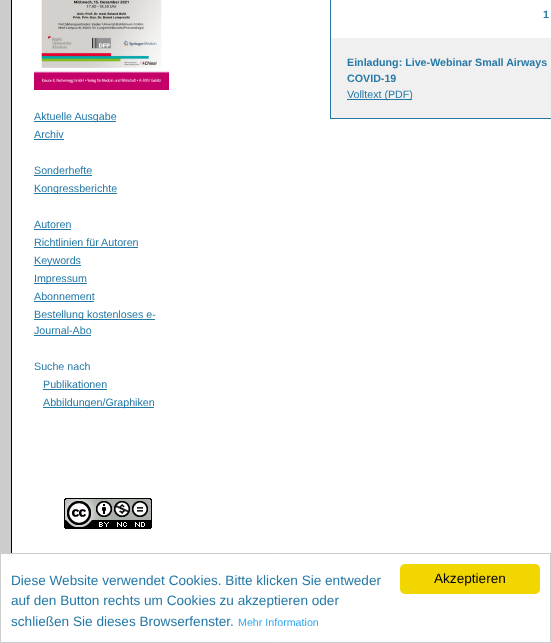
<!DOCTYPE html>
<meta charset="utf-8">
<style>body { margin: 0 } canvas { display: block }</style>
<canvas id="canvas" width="551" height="643"></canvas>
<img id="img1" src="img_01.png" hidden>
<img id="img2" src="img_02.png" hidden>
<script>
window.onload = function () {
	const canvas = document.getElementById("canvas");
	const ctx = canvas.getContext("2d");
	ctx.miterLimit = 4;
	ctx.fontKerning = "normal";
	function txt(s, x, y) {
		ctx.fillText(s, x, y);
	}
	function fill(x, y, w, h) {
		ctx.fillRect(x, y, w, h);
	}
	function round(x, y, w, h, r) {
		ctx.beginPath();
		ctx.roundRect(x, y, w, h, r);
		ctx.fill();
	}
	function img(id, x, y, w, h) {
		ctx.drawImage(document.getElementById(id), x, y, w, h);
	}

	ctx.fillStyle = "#CCCCCC";
	fill(0, 0, 551, 643);
	ctx.fillStyle = "#FFFFFF";
	fill(12, 0, 539, 553);
	ctx.strokeStyle = "#000000";
	ctx.strokeRect(11.5, -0.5, 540, 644);
	ctx.strokeStyle = "#2579A7";
	ctx.strokeRect(330.5, -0.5, 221, 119);
	ctx.fillStyle = "#F0F0F0";
	fill(331, 38, 220, 80);
	ctx.fillStyle = "#2579A7";
	fill(347, 99, 65, 1);
	img("img1", 34, 0, 135, 90);
	fill(34, 121, 82, 1);
	fill(34, 139, 30, 1);
	fill(34, 175, 58, 1);
	fill(34, 193, 83, 1);
	fill(34, 229, 37, 1);
	fill(34, 247, 104, 1);
	fill(34, 265, 47, 1);
	fill(34, 283, 53, 1);
	fill(34, 301, 60, 1);
	fill(34, 319, 121, 1);
	fill(34, 335, 57, 1);
	fill(43, 389, 64, 1);
	fill(43, 407, 111, 1);
	img("img2", 64, 498, 88, 31);
	ctx.fillStyle = "#FFFFFF";
	ctx.beginPath();
	ctx.rect(0.5, 553.5, 550, 89);
	ctx.fill();
	ctx.strokeStyle = "#CCCCCC";
	ctx.stroke();
	ctx.fillStyle = "#F1D600";
	round(400, 564, 140, 30, 5);
	ctx.font = "bold 10.7px Liberation Sans";
	ctx.fillStyle = "#2579A7";
	txt("1", 543, 18);
	txt("Einladung: Live-Webinar Small Airways", 347, 66);
	txt("COVID-19", 347, 82);
	ctx.font = "10.7px Liberation Sans";
	txt("Volltext (PDF)", 347, 98);
	txt("Aktuelle Ausgabe", 34, 120);
	txt("Archiv", 34, 138);
	txt("Sonderhefte", 34, 174);
	txt("Kongressberichte", 34, 192);
	txt("Autoren", 34, 228);
	txt("Richtlinien für Autoren", 34, 246);
	txt("Keywords", 34, 264);
	txt("Impressum", 34, 282);
	txt("Abonnement", 34, 300);
	txt("Bestellung kostenloses e-", 34, 318);
	txt("Journal-Abo", 34, 334);
	txt("Suche nach", 34, 370);
	txt("Publikationen", 43, 388);
	txt("Abbildungen/Graphiken", 43, 406);
	ctx.font = "13.6px Liberation Sans";
	txt("Diese Website verwendet Cookies. Bitte klicken Sie entweder", 11, 585);
	txt("auf den Button rechts um Cookies zu akzeptieren oder", 11, 605);
	txt("schließen Sie dieses Browserfenster.", 11, 626);
	ctx.font = "10.7px Liberation Sans";
	ctx.fillStyle = "#31A8F0";
	txt("Mehr Information", 238, 626);
	ctx.font = "13.6px Liberation Sans";
	ctx.fillStyle = "#000000";
	txt("Akzeptieren", 434, 583);
};
</script>
